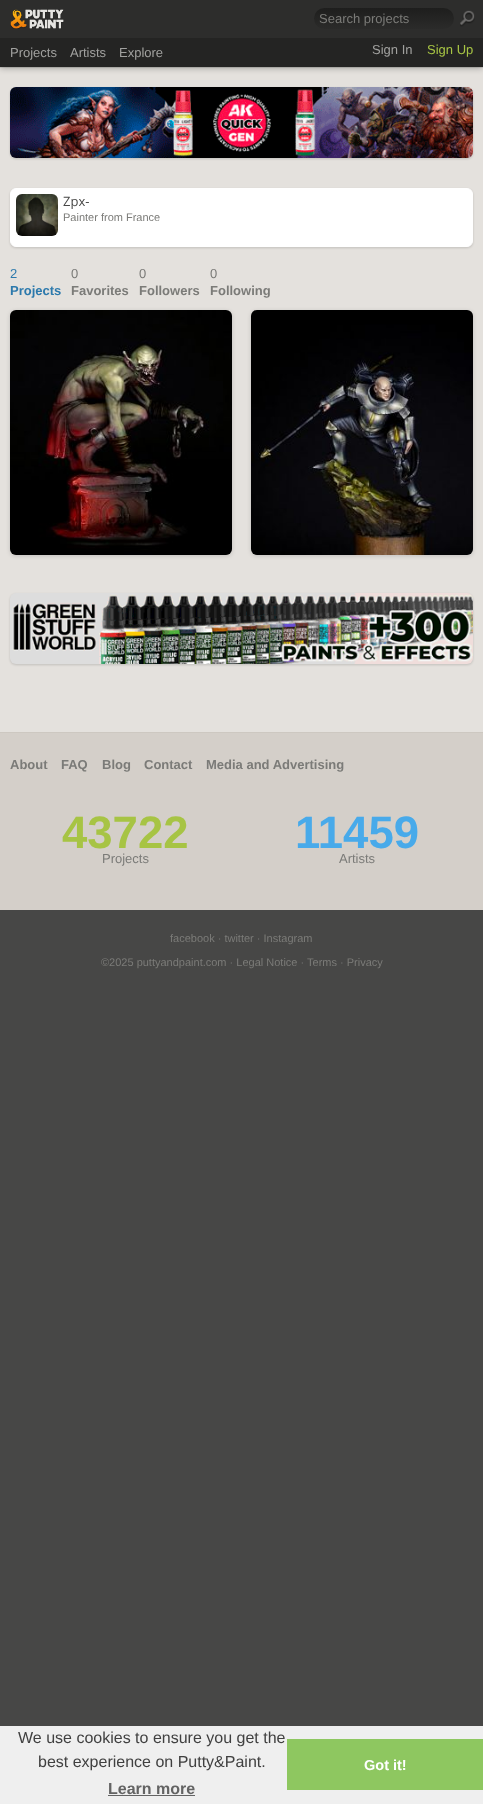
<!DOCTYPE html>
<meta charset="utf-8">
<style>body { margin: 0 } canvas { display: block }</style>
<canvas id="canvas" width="483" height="1804"></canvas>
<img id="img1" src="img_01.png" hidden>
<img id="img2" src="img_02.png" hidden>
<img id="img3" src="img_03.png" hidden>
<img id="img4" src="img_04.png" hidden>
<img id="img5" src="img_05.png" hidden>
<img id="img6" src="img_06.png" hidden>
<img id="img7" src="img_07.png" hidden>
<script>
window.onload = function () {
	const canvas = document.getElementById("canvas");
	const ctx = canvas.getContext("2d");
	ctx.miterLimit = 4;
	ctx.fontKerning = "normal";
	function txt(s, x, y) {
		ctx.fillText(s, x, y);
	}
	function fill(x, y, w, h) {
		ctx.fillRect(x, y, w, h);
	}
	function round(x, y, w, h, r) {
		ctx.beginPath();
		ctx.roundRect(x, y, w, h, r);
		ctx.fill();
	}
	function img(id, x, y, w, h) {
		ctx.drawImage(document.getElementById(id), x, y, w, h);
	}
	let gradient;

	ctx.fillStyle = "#474746";
	fill(0, 0, 483, 1804);
	ctx.fillStyle = "#E4E1DD";
	fill(0, 67, 483, 665);
	ctx.fillStyle = "rgba(0, 0, 0, 0.1)";
	ctx.filter = "blur(0.5px)";
	ctx.beginPath();
	ctx.rect(0, 1, 483, 67);
	ctx.fill();
	ctx.filter = "none";
	ctx.fillStyle = "rgba(0, 0, 0, 0.3)";
	ctx.filter = "blur(3px)";
	ctx.beginPath();
	ctx.rect(0, 1, 483, 67);
	ctx.fill();
	ctx.filter = "none";
	ctx.fillStyle = "#2D2D2C";
	fill(0, 0, 483, 38);
	img("img1", 10, 9, 54, 20);
	ctx.fillStyle = "#242423";
	fill(0, 38, 483, 29);
	gradient = ctx.createLinearGradient(384, 8, 384, 29);
	gradient.addColorStop(0, "#1E1E1D");
	gradient.addColorStop(1, "#2B2B2A");
	ctx.fillStyle = gradient;
	round(314, 8, 140, 21, 10.5);
	img("img2", 460, 10, 15, 17);
	ctx.fillStyle = "rgba(0, 0, 0, 0.15)";
	ctx.filter = "blur(1px)";
	ctx.beginPath();
	ctx.roundRect(10, 88, 463, 71, 6);
	ctx.fill();
	ctx.filter = "none";
	img("img3", 10, 87, 463, 71);
	ctx.filter = "blur(1px)";
	ctx.beginPath();
	ctx.roundRect(10, 189, 463, 59, 6);
	ctx.fill();
	ctx.filter = "none";
	ctx.fillStyle = "#FFFFFF";
	ctx.beginPath();
	ctx.roundRect(10.5, 188.5, 462, 58, 5.5);
	ctx.fill();
	ctx.strokeStyle = "#FFFFFF";
	ctx.stroke();
	img("img4", 16, 194, 42, 42);
	ctx.fillStyle = "rgba(0, 0, 0, 0.15)";
	ctx.filter = "blur(2px)";
	ctx.beginPath();
	ctx.roundRect(10, 311, 222, 245, 6);
	ctx.fill();
	ctx.filter = "none";
	img("img5", 10, 310, 222, 245);
	ctx.filter = "blur(2px)";
	ctx.beginPath();
	ctx.roundRect(251, 311, 222, 245, 6);
	ctx.fill();
	ctx.filter = "none";
	img("img6", 251, 310, 222, 245);
	ctx.filter = "blur(1px)";
	ctx.beginPath();
	ctx.roundRect(10, 594, 463, 71, 6);
	ctx.fill();
	ctx.filter = "none";
	img("img7", 10, 593, 463, 71);
	ctx.fillStyle = "#D4CFC9";
	fill(0, 733, 483, 177);
	ctx.fillStyle = "#CDC8C1";
	fill(0, 732, 483, 1);
	ctx.fillStyle = "#EFEFEF";
	fill(0, 1726, 483, 78);
	ctx.fillStyle = "#636363";
	fill(108, 1795, 87, 1);
	ctx.fillStyle = "#8EC760";
	fill(287, 1739, 196, 51);
	ctx.font = "13px Liberation Sans";
	ctx.fillStyle = "#A1A19F";
	txt("Projects", 10, 57);
	txt("Artists", 70, 57);
	txt("Explore", 119, 57);
	ctx.fillStyle = "#7B7B78";
	txt("Search projects", 319, 23);
	ctx.fillStyle = "#A1A19F";
	txt("Sign In", 372, 54);
	ctx.fillStyle = "#A7C444";
	txt("Sign Up", 427, 54);
	ctx.font = "13px Open Sans";
	ctx.fillStyle = "#474746";
	txt("Zpx-", 63, 206);
	ctx.font = "11px Liberation Sans";
	ctx.fillStyle = "#7B7B78";
	txt("Painter from France", 63, 221);
	ctx.font = "13px Liberation Sans";
	ctx.fillStyle = "#2C79AC";
	txt("2", 10, 278);
	ctx.font = "bold 13px Liberation Sans";
	txt("Projects", 10, 295);
	ctx.font = "13px Liberation Sans";
	ctx.fillStyle = "#7B7B78";
	txt("0", 71, 278);
	ctx.font = "bold 13px Liberation Sans";
	txt("Favorites", 71, 295);
	ctx.font = "13px Liberation Sans";
	txt("0", 139, 278);
	ctx.font = "bold 13px Liberation Sans";
	txt("Followers", 139, 295);
	ctx.font = "13px Liberation Sans";
	txt("0", 210, 278);
	ctx.font = "bold 13px Liberation Sans";
	txt("Following", 210, 295);
	txt("About", 10, 769);
	txt("FAQ", 61, 769);
	txt("Blog", 102, 769);
	txt("Contact", 144, 769);
	txt("Media and Advertising", 206, 769);
	ctx.font = "bold 45.5px Liberation Sans";
	ctx.fillStyle = "#A7C444";
	txt("43722", 62, 848);
	ctx.font = "13px Liberation Sans";
	ctx.fillStyle = "#7B7B78";
	txt("Projects", 102, 863);
	ctx.font = "bold 45.5px Liberation Sans";
	ctx.fillStyle = "#48AAEA";
	txt("11459", 295, 848);
	ctx.font = "13px Liberation Sans";
	ctx.fillStyle = "#7B7B78";
	txt("Artists", 339, 863);
	ctx.font = "11px Liberation Sans";
	txt("facebook · twitter · Instagram", 170, 942);
	txt("©2025 puttyandpaint.com · Legal Notice · Terms · Privacy", 101, 966);
	ctx.font = "16px Liberation Sans";
	ctx.fillStyle = "#404040";
	txt("We use cookies to ensure you get the", 18, 1743);
	txt("best experience on Putty&Paint.", 38, 1767);
	ctx.font = "bold 16px Liberation Sans";
	ctx.fillStyle = "#636363";
	txt("Learn more", 108, 1794);
	ctx.font = "bold 14.5px Liberation Sans";
	ctx.fillStyle = "#FFFFFF";
	txt("Got it!", 364, 1770);
};
</script>
